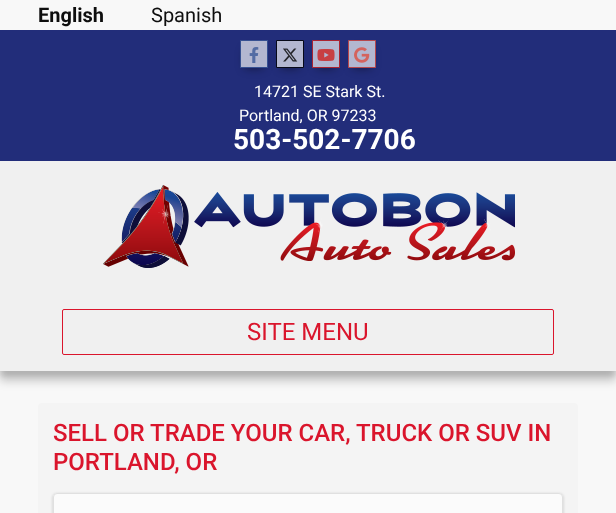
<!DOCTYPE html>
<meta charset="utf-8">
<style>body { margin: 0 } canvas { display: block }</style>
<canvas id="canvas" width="616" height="513"></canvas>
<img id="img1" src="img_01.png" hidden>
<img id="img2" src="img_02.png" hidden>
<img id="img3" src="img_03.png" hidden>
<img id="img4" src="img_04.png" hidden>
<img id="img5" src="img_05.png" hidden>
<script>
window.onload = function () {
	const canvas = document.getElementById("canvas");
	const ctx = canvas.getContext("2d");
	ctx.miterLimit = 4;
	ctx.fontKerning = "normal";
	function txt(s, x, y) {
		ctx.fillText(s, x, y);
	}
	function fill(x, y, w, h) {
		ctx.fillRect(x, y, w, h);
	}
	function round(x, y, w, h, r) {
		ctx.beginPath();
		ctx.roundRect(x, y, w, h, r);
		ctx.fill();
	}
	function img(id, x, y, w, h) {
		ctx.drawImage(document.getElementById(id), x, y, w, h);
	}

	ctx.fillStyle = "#F8F8F8";
	fill(0, 0, 616, 513);
	ctx.fillStyle = "rgba(0, 0, 0, 0.1)";
	ctx.filter = "blur(2.5px)";
	ctx.beginPath();
	ctx.rect(0, 35, 616, 341);
	ctx.fill();
	ctx.filter = "none";
	ctx.fillStyle = "rgba(0, 0, 0, 0.2)";
	ctx.filter = "blur(5px)";
	ctx.beginPath();
	ctx.rect(0, 40, 616, 341);
	ctx.fill();
	ctx.filter = "none";
	ctx.fillStyle = "#F0F0F0";
	fill(0, 161, 616, 210);
	ctx.fillStyle = "#222D7A";
	fill(0, 30, 616, 131);
	ctx.fillStyle = "rgba(7, 9, 24, 0.6)";
	ctx.filter = "blur(5px)";
	ctx.beginPath();
	ctx.rect(245, 50, 18, 18);
	ctx.fill();
	ctx.filter = "none";
	ctx.fillStyle = "#B3B7D0";
	ctx.beginPath();
	ctx.rect(240.5, 40.5, 27, 27);
	ctx.fill();
	ctx.strokeStyle = "#365092";
	ctx.stroke();
	img("img1", 249, 47, 10, 16);
	ctx.fillStyle = "rgba(7, 9, 24, 0.6)";
	ctx.filter = "blur(5px)";
	ctx.beginPath();
	ctx.rect(281, 50, 18, 18);
	ctx.fill();
	ctx.filter = "none";
	ctx.fillStyle = "#B3B7D0";
	ctx.beginPath();
	ctx.rect(276.5, 40.5, 27, 27);
	ctx.fill();
	ctx.strokeStyle = "#070918";
	ctx.stroke();
	img("img2", 283, 48, 15, 14);
	ctx.fillStyle = "rgba(7, 9, 24, 0.6)";
	ctx.filter = "blur(5px)";
	ctx.beginPath();
	ctx.rect(317, 50, 18, 18);
	ctx.fill();
	ctx.filter = "none";
	ctx.fillStyle = "#B3B7D0";
	ctx.beginPath();
	ctx.rect(312.5, 40.5, 27, 27);
	ctx.fill();
	ctx.strokeStyle = "#AB2331";
	ctx.stroke();
	img("img3", 317, 49, 18, 12);
	ctx.fillStyle = "rgba(7, 9, 24, 0.6)";
	ctx.filter = "blur(5px)";
	ctx.beginPath();
	ctx.rect(353, 50, 18, 18);
	ctx.fill();
	ctx.filter = "none";
	ctx.fillStyle = "#B3B7D0";
	ctx.beginPath();
	ctx.rect(348.5, 40.5, 27, 27);
	ctx.fill();
	ctx.strokeStyle = "#B7474C";
	ctx.stroke();
	img("img4", 354, 47, 16, 16);
	img("img5", 103, 185, 412, 83);
	ctx.beginPath();
	ctx.roundRect(62.5, 309.5, 491, 45, 1.5);
	ctx.strokeStyle = "#DA152C";
	ctx.stroke();
	ctx.fillStyle = "#F4F4F4";
	round(38, 403, 540, 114, 4);
	ctx.save();
	ctx.beginPath();
	ctx.moveTo(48, 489);
	ctx.lineTo(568, 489);
	ctx.lineTo(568, 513);
	ctx.lineTo(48, 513);
	ctx.closePath();
	ctx.moveTo(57, 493);
	ctx.lineTo(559, 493);
	ctx.bezierCurveTo(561, 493, 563, 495, 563, 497);
	ctx.lineTo(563, 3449);
	ctx.bezierCurveTo(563, 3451, 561, 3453, 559, 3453);
	ctx.lineTo(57, 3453);
	ctx.bezierCurveTo(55, 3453, 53, 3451, 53, 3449);
	ctx.lineTo(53, 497);
	ctx.bezierCurveTo(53, 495, 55, 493, 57, 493);
	ctx.closePath();
	ctx.clip("evenodd");
	ctx.fillStyle = "rgba(0, 0, 0, 0.1)";
	ctx.filter = "blur(1px)";
	ctx.beginPath();
	ctx.roundRect(52, 493, 512, 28, 5);
	ctx.fill();
	ctx.filter = "none";
	ctx.restore();
	ctx.fillStyle = "rgba(255, 255, 255, 0.6)";
	ctx.beginPath();
	ctx.roundRect(53.5, 493.5, 509, 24, 3.5);
	ctx.fill();
	ctx.strokeStyle = "#E0E0E0";
	ctx.stroke();
	ctx.font = "bold 20px Roboto";
	ctx.fillStyle = "#0E0E0E";
	txt("English", 38, 22);
	ctx.font = "20px Roboto";
	txt("Spanish", 151, 22);
	ctx.font = "16px Roboto";
	ctx.fillStyle = "#FFFFFF";
	txt("14721 SE Stark St.", 254, 97);
	txt("Portland, OR 97233", 239, 121);
	ctx.font = "bold 28px Roboto";
	txt("503-502-7706", 233, 149);
	ctx.font = "24px Roboto";
	ctx.fillStyle = "#DA152C";
	txt("SITE MENU", 247, 340);
	ctx.font = "500 24px Roboto";
	txt("SELL OR TRADE YOUR CAR, TRUCK OR SUV IN", 53, 441);
	txt("PORTLAND, OR", 53, 470);
};
</script>
